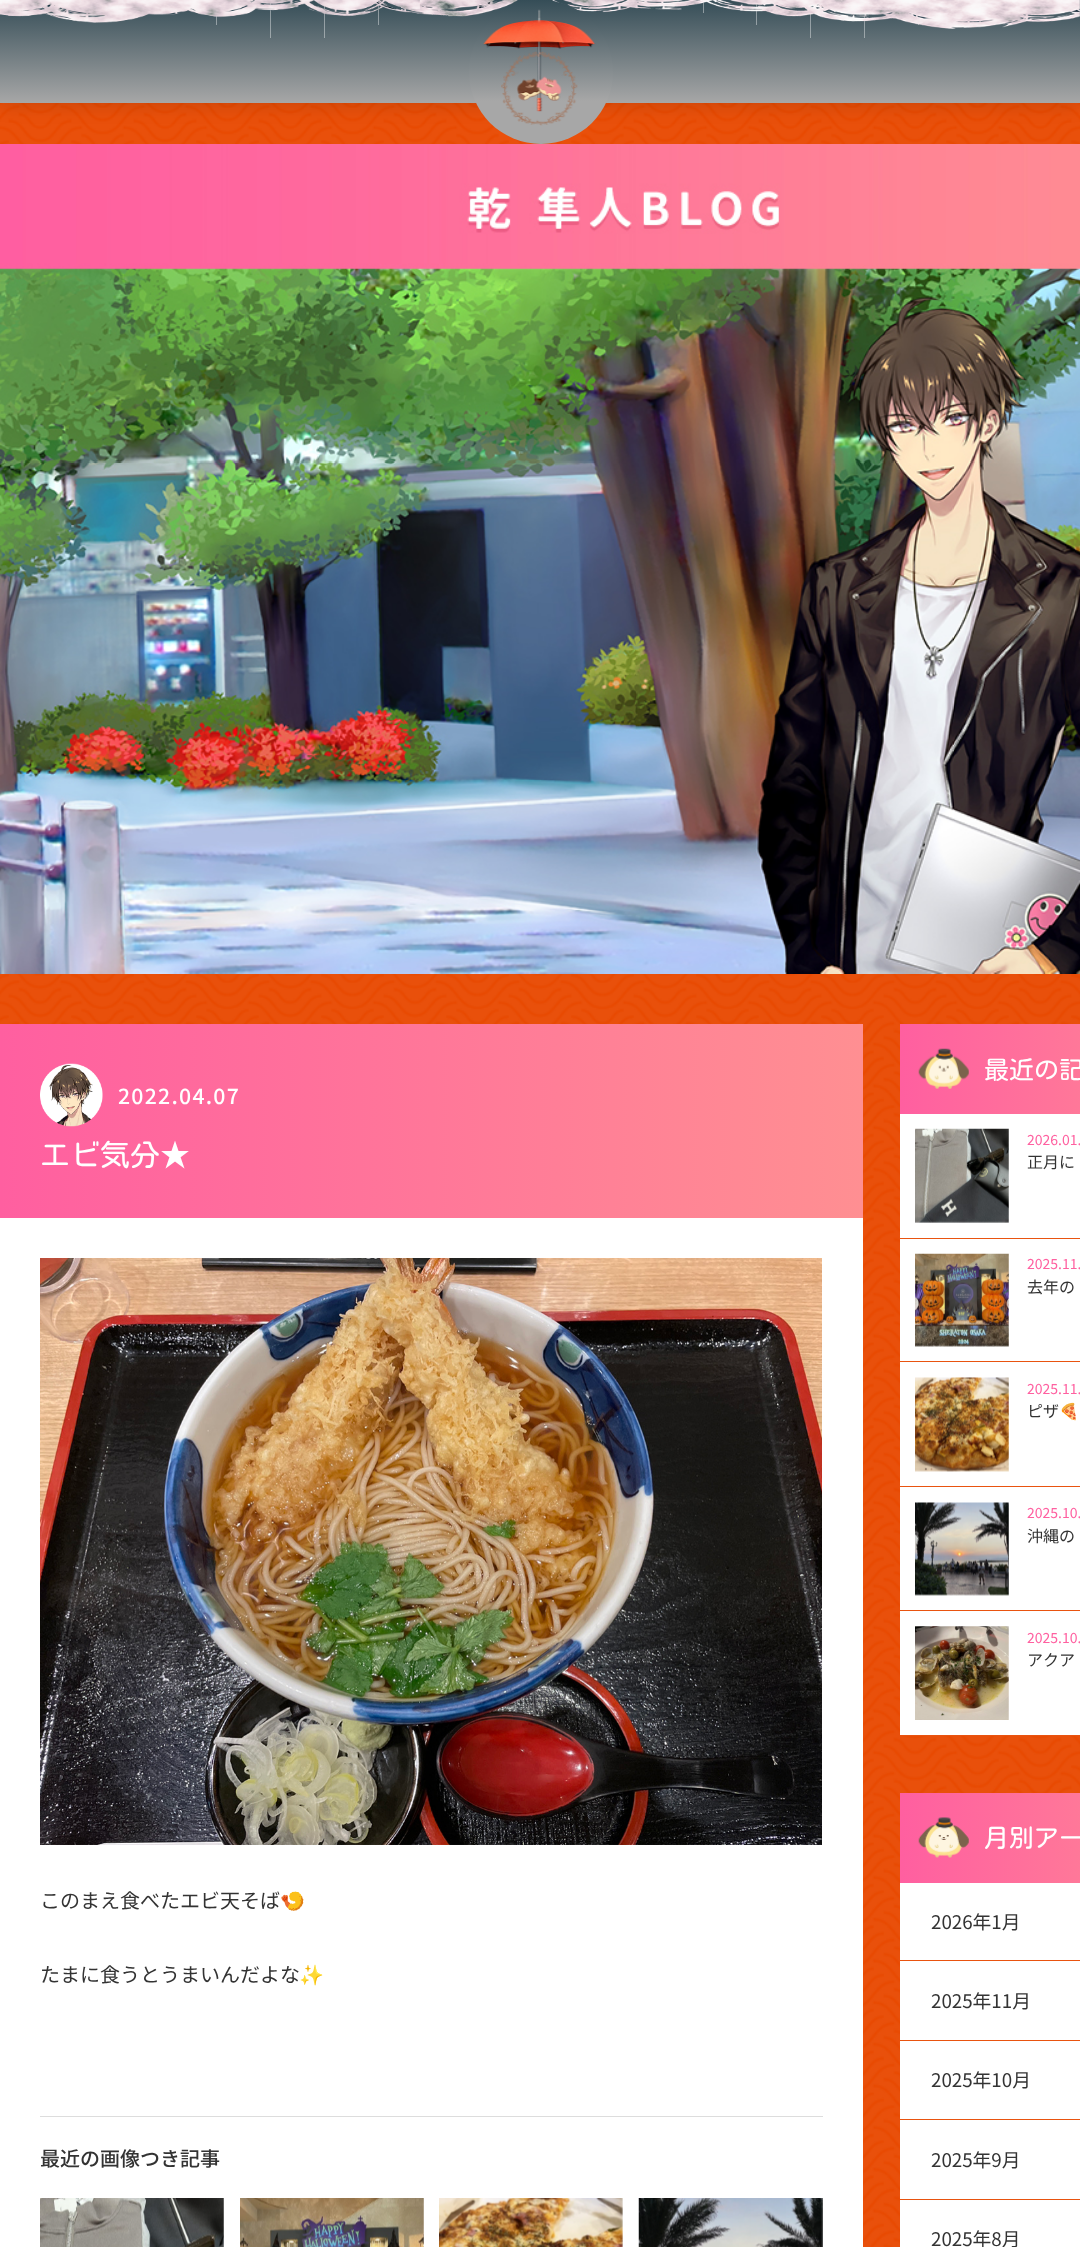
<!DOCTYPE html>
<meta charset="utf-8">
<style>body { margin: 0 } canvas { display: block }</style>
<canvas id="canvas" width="1080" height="2247"></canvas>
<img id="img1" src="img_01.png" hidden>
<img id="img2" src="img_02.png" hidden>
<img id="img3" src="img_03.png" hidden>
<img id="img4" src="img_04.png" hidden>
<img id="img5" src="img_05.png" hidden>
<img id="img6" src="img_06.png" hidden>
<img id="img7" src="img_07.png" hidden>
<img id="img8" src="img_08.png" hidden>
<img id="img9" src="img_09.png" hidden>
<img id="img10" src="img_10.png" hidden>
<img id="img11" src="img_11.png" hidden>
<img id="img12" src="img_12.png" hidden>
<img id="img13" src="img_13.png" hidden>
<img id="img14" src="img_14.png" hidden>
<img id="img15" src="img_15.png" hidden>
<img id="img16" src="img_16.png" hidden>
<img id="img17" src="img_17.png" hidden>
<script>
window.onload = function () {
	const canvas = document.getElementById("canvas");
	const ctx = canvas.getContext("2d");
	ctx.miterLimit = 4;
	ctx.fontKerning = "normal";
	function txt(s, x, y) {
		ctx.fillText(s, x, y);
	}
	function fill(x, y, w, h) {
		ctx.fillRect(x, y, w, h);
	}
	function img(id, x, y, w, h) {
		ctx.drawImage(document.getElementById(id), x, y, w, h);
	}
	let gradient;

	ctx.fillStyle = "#FFFFFF";
	fill(0, 0, 1080, 2247);
	img("img1", 0, 103, 1080, 2144);
	ctx.fillStyle = "rgba(0, 0, 0, 0.16)";
	ctx.filter = "blur(10px)";
	ctx.beginPath();
	ctx.rect(0, 0, 1080, 103);
	ctx.fill();
	ctx.filter = "none";
	gradient = ctx.createLinearGradient(540, 0, 540, 103);
	gradient.addColorStop(0, "#354D57");
	gradient.addColorStop(1, "#A7A7A7");
	ctx.fillStyle = gradient;
	fill(0, 0, 1080, 103);
	ctx.fillStyle = "rgba(255, 255, 255, 0.4)";
	fill(216, 16, 1, 9);
	fill(270, 0, 1, 38);
	fill(324, 0, 1, 38);
	fill(378, 0, 1, 25);
	fill(703, 0, 1, 13);
	fill(756, 0, 1, 25);
	fill(810, 14, 1, 24);
	fill(864, 14, 1, 24);
	fill(918, 23, 1, 2);
	img("img2", 0, 0, 1080, 29);
	gradient = ctx.createLinearGradient(541, 0, 541, 144);
	gradient.addColorStop(0, "#354D57");
	gradient.addColorStop(0.7, "#A7A7A7");
	ctx.fillStyle = gradient;
	ctx.beginPath();
	ctx.arc(541, 72, 72, 0, Math.PI * 2);
	ctx.fill();
	img("img3", 483, 9, 113, 117);
	img("img4", 0, 144, 1080, 830);
	gradient = ctx.createLinearGradient(0, 1121, 863, 1121);
	gradient.addColorStop(0, "#FF5FA0");
	gradient.addColorStop(1, "#FF8F92");
	ctx.fillStyle = gradient;
	fill(0, 1024, 863, 194);
	img("img5", 40, 1063, 63, 64);
	ctx.fillStyle = "#FFFFFF";
	fill(0, 1218, 863, 1029);
	img("img6", 40, 1258, 782, 587);
	ctx.fillStyle = "#DDDDDD";
	fill(40, 2116, 783, 1);
	img("img7", 40, 2198, 184, 49);
	img("img8", 240, 2198, 184, 49);
	img("img9", 439, 2198, 184, 49);
	img("img10", 638, 2198, 185, 49);
	ctx.fillStyle = "#FFFFFF";
	fill(900, 1114, 180, 621);
	gradient = ctx.createLinearGradient(900, 1069, 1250, 1069);
	gradient.addColorStop(0, "#FF5FA0");
	gradient.addColorStop(1, "#FF8F92");
	ctx.fillStyle = gradient;
	fill(900, 1024, 180, 90);
	img("img11", 918, 1048, 51, 41);
	ctx.fillStyle = "#E9530F";
	fill(900, 1238, 180, 1);
	img("img12", 915, 1128, 94, 95);
	fill(900, 1361, 180, 1);
	img("img13", 915, 1253, 94, 94);
	fill(900, 1486, 180, 1);
	img("img14", 915, 1377, 94, 95);
	fill(900, 1610, 180, 1);
	img("img15", 915, 1502, 94, 94);
	fill(900, 1735, 180, 1);
	img("img16", 915, 1626, 94, 94);
	ctx.fillStyle = "#FFFFFF";
	fill(900, 1883, 180, 364);
	gradient = ctx.createLinearGradient(900, 1838, 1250, 1838);
	gradient.addColorStop(0, "#FF5FA0");
	gradient.addColorStop(1, "#FF8F92");
	ctx.fillStyle = gradient;
	fill(900, 1793, 180, 90);
	img("img17", 918, 1817, 51, 41);
	ctx.fillStyle = "#E9530F";
	fill(900, 1960, 180, 1);
	fill(900, 2040, 180, 1);
	fill(900, 2119, 180, 1);
	fill(900, 2199, 180, 1);
	ctx.letterSpacing = "1.25px";
	ctx.font = "500 21.25px Noto Sans JP";
	ctx.fillStyle = "#FFFFFF";
	txt("2022.04.07", 118, 1104);
	ctx.letterSpacing = "0px";
	ctx.font = "30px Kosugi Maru";
	txt("エビ気分★", 40, 1166);
	ctx.font = "20px Noto Sans JP";
	ctx.fillStyle = "#333333";
	txt("このまえ食べたエビ天そば", 40, 1908);
	ctx.font = "20px Noto Color Emoji";
	txt("🍤", 280, 1908);
	ctx.font = "20px Noto Sans JP";
	txt("たまに食うとうまいんだよな", 40, 1982);
	ctx.font = "20px Noto Color Emoji";
	txt("✨", 299, 1982);
	ctx.font = "500 20px Noto Sans JP";
	txt("最近の画像つき記事", 40, 2166);
	ctx.font = "25px Kosugi Maru";
	ctx.fillStyle = "#FFFFFF";
	txt("最近の記", 984, 1079);
	ctx.font = "14px Noto Sans JP";
	ctx.fillStyle = "#FF60A0";
	txt("2026.01.", 1027, 1145);
	ctx.font = "16px Noto Sans JP";
	ctx.fillStyle = "#333333";
	txt("正月に", 1027, 1168);
	ctx.font = "14px Noto Sans JP";
	ctx.fillStyle = "#FF60A0";
	txt("2025.11.", 1027, 1269);
	ctx.font = "16px Noto Sans JP";
	ctx.fillStyle = "#333333";
	txt("去年の", 1027, 1293);
	ctx.font = "14px Noto Sans JP";
	ctx.fillStyle = "#FF60A0";
	txt("2025.11.", 1027, 1394);
	ctx.font = "16px Noto Sans JP";
	ctx.fillStyle = "#333333";
	txt("ピザ", 1027, 1417);
	ctx.font = "16px Noto Color Emoji";
	txt("🍕", 1059, 1417);
	ctx.font = "14px Noto Sans JP";
	ctx.fillStyle = "#FF60A0";
	txt("2025.10.", 1027, 1518);
	ctx.font = "16px Noto Sans JP";
	ctx.fillStyle = "#333333";
	txt("沖縄の", 1027, 1542);
	ctx.font = "14px Noto Sans JP";
	ctx.fillStyle = "#FF60A0";
	txt("2025.10.", 1027, 1643);
	ctx.font = "16px Noto Sans JP";
	ctx.fillStyle = "#333333";
	txt("アクア", 1027, 1666);
	ctx.font = "25px Kosugi Maru";
	ctx.fillStyle = "#FFFFFF";
	txt("月別アー", 984, 1847);
	ctx.font = "18.75px Noto Sans JP";
	ctx.fillStyle = "#333333";
	txt("2026年1月", 931, 1929);
	txt("2025年11月", 931, 2008);
	txt("2025年10月", 931, 2087);
	txt("2025年9月", 931, 2167);
	txt("2025年8月", 931, 2246);
};
</script>
